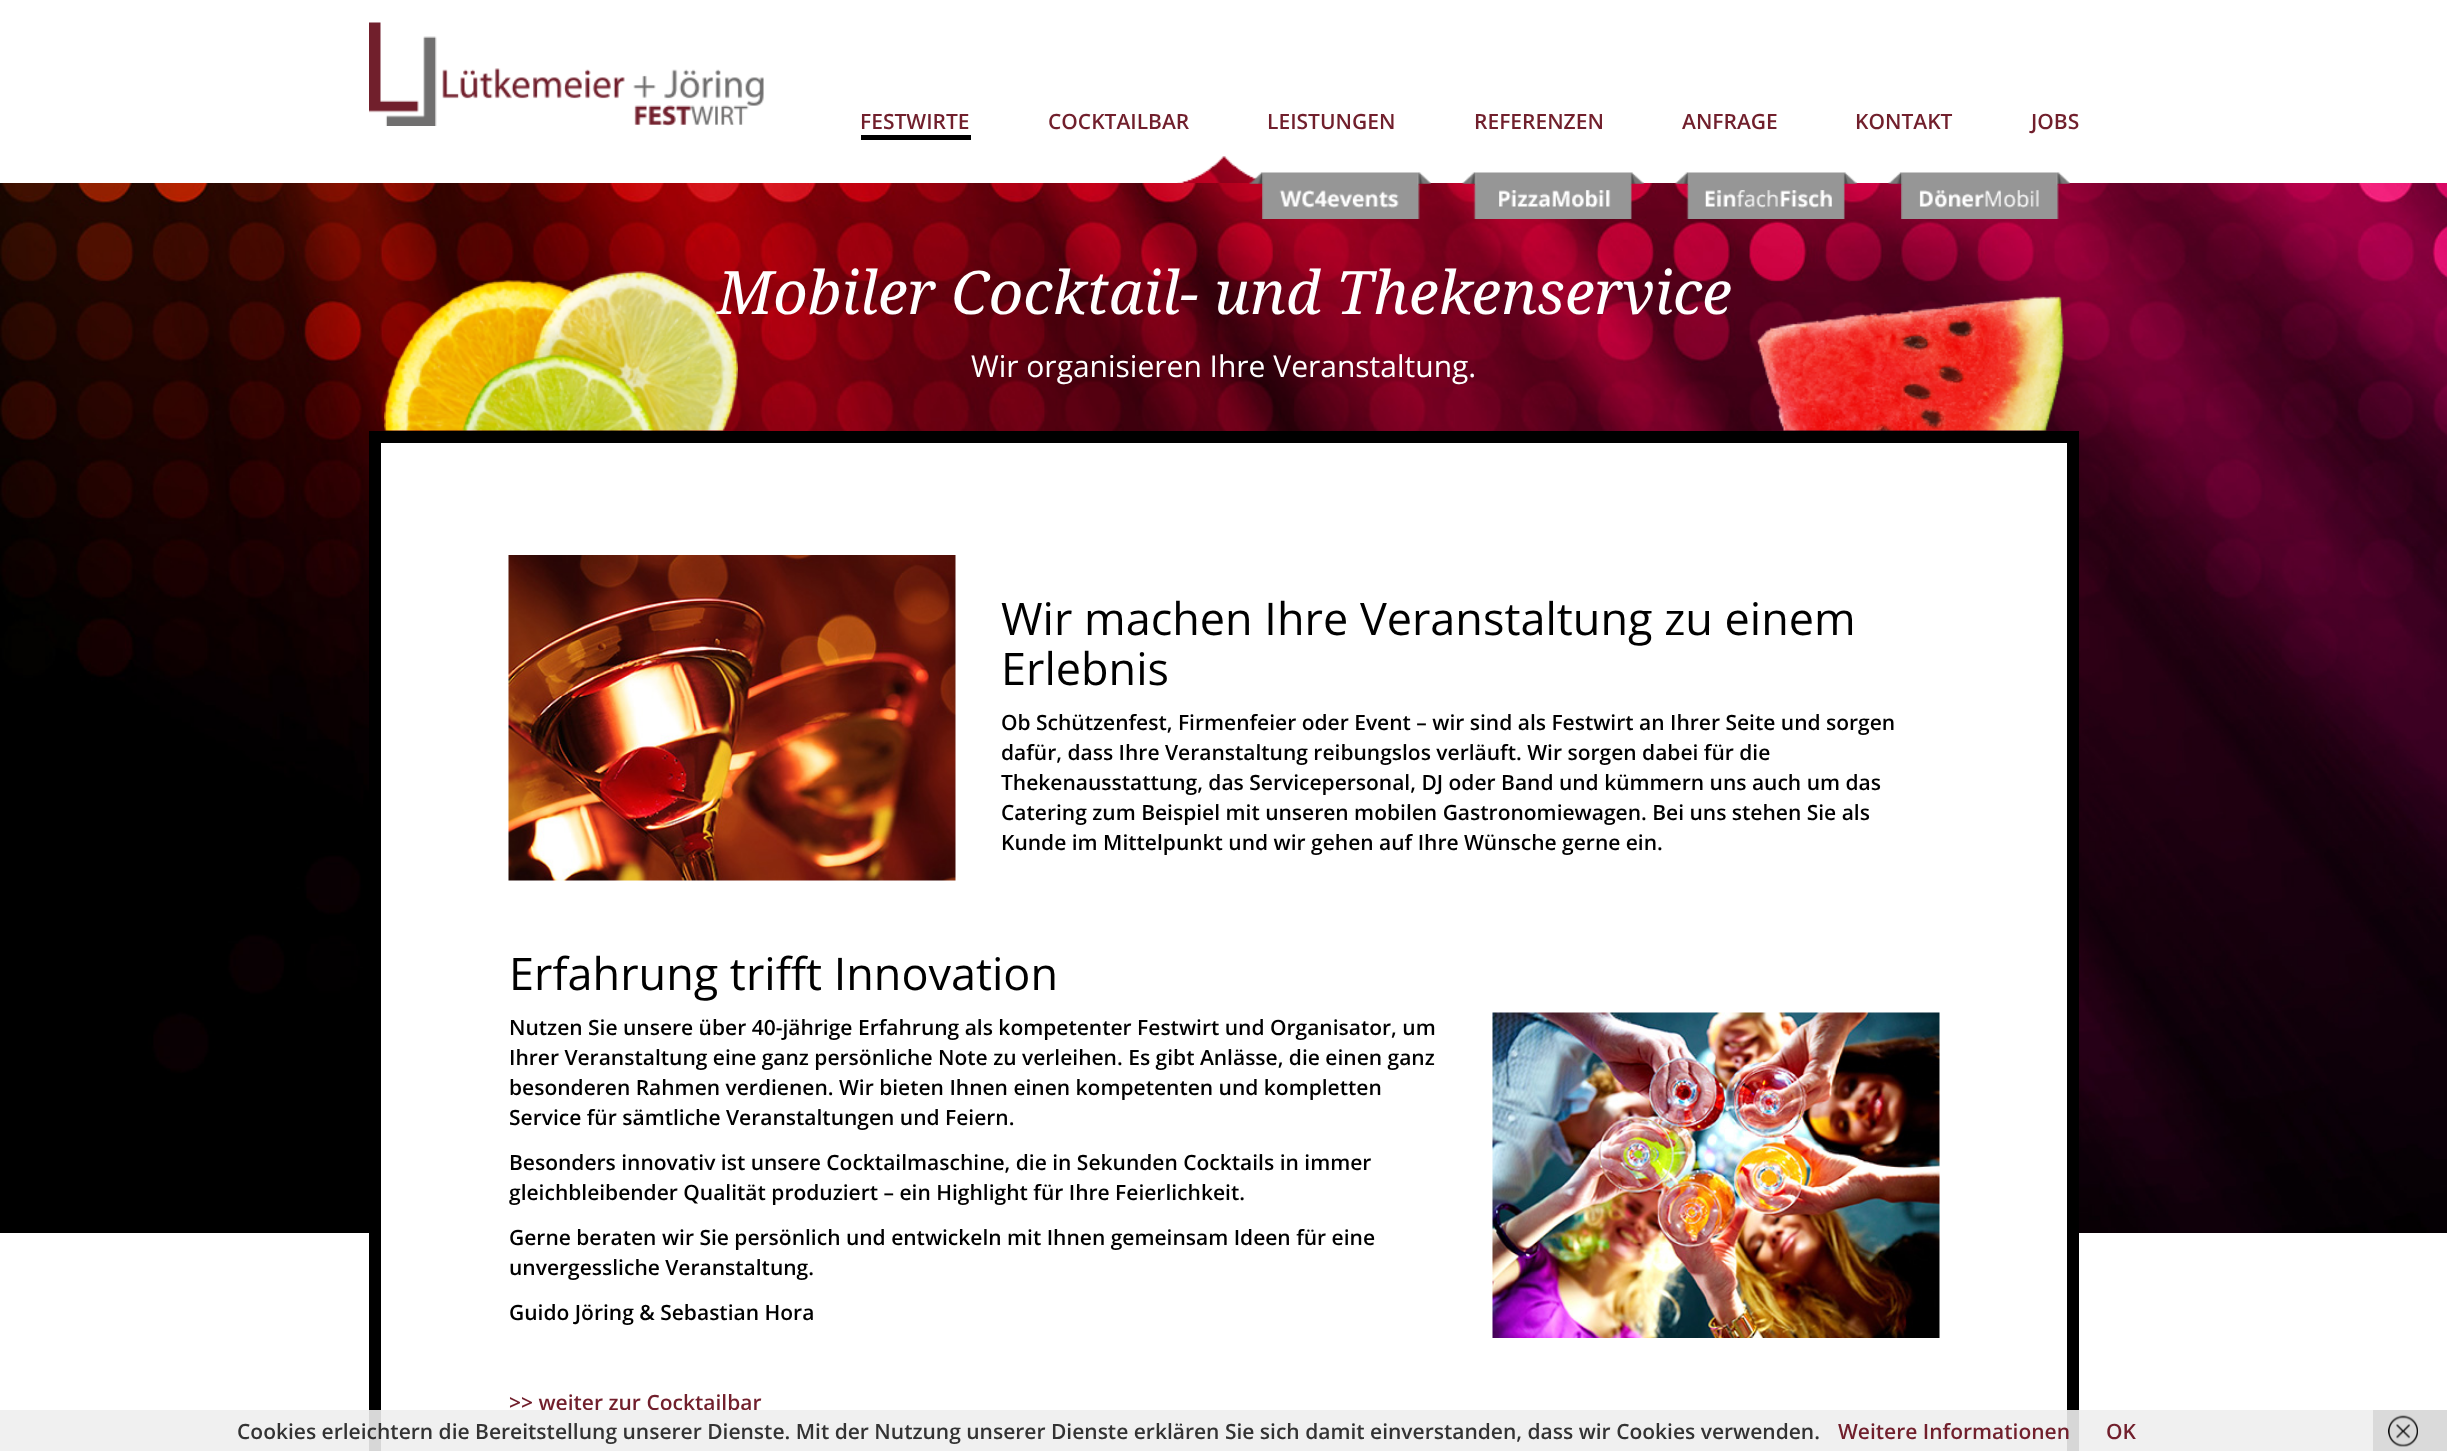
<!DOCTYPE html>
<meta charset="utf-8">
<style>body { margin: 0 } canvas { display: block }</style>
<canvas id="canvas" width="2447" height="1451"></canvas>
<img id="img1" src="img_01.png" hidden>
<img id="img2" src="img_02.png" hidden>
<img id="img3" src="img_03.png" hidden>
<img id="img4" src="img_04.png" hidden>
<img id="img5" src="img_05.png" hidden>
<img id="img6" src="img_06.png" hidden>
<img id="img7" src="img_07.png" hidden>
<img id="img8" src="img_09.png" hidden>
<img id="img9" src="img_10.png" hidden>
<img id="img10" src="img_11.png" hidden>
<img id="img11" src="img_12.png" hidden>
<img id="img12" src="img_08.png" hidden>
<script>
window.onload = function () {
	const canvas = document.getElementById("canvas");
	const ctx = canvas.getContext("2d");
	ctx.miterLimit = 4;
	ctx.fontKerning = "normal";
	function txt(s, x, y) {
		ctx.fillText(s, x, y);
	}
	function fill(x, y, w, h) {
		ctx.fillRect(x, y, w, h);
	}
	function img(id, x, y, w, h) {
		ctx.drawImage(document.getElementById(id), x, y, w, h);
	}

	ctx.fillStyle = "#FFFFFF";
	fill(0, 0, 2447, 1451);
	img("img1", 369, 22, 395, 104);
	ctx.fillStyle = "#000000";
	fill(861, 135, 110, 5);
	img("img2", 1177, 156, 81, 27);
	img("img3", 0, 183, 2447, 1050);
	img("img4", 1249, 172, 182, 47);
	img("img5", 1462, 172, 182, 47);
	img("img6", 1675, 172, 182, 47);
	img("img7", 1888, 172, 182, 47);
	fill(369, 431, 1710, 1020);
	img("img8", 1756, 296, 308, 135);
	ctx.fillStyle = "#FFFFFF";
	fill(381, 443, 1686, 1008);
	img("img9", 508, 555, 448, 326);
	img("img10", 1492, 1012, 448, 326);
	ctx.fillStyle = "#DADADA";
	fill(2373, 1410, 74, 41);
	img("img11", 2388, 1415, 30, 32);
	ctx.font = "600 21px Open Sans";
	ctx.fillStyle = "#711F2C";
	txt("FESTWIRTE", 860, 129);
	txt("COCKTAILBAR", 1048, 129);
	txt("LEISTUNGEN", 1267, 129);
	txt("REFERENZEN", 1474, 129);
	txt("ANFRAGE", 1682, 129);
	txt("KONTAKT", 1855, 129);
	txt("JOBS", 2031, 129);
	ctx.font = "italic 60px Noto Serif";
	ctx.fillStyle = "#FFFFFF";
	txt("Mobiler Cocktail- und Thekenservice", 717, 314);
	ctx.font = "30px Open Sans";
	txt("Wir organisieren Ihre Veranstaltung.", 971, 377);
	img("img12", 384, 271, 354, 160);
	ctx.font = "45px Open Sans";
	ctx.fillStyle = "#000000";
	txt("Wir machen Ihre Veranstaltung zu einem", 1001, 635);
	txt("Erlebnis", 1001, 685);
	ctx.font = "600 21px Open Sans";
	txt("Ob Schützenfest, Firmenfeier oder Event – wir sind als Festwirt an Ihrer Seite und sorgen", 1001, 730);
	txt("dafür, dass Ihre Veranstaltung reibungslos verläuft. Wir sorgen dabei für die", 1001, 760);
	txt("Thekenausstattung, das Servicepersonal, DJ oder Band und kümmern uns auch um das", 1001, 790);
	txt("Catering zum Beispiel mit unseren mobilen Gastronomiewagen. Bei uns stehen Sie als", 1001, 820);
	txt("Kunde im Mittelpunkt und wir gehen auf Ihre Wünsche gerne ein.", 1001, 850);
	ctx.font = "45px Open Sans";
	txt("Erfahrung trifft Innovation", 509, 990);
	ctx.font = "600 21px Open Sans";
	txt("Nutzen Sie unsere über 40-jährige Erfahrung als kompetenter Festwirt und Organisator, um", 509, 1035);
	txt("Ihrer Veranstaltung eine ganz persönliche Note zu verleihen. Es gibt Anlässe, die einen ganz", 509, 1065);
	txt("besonderen Rahmen verdienen. Wir bieten Ihnen einen kompetenten und kompletten", 509, 1095);
	txt("Service für sämtliche Veranstaltungen und Feiern.", 509, 1125);
	txt("Besonders innovativ ist unsere Cocktailmaschine, die in Sekunden Cocktails in immer", 509, 1170);
	txt("gleichbleibender Qualität produziert – ein Highlight für Ihre Feierlichkeit.", 509, 1200);
	txt("Gerne beraten wir Sie persönlich und entwickeln mit Ihnen gemeinsam Ideen für eine", 509, 1245);
	txt("unvergessliche Veranstaltung.", 509, 1275);
	txt("Guido Jöring & Sebastian Hora", 509, 1320);
	ctx.fillStyle = "#711F2C";
	txt(">> weiter zur Cocktailbar", 509, 1410);
	ctx.fillStyle = "rgba(238, 238, 238, 0.9)";
	fill(0, 1410, 2373, 41);
	ctx.fillStyle = "#333333";
	txt("Cookies erleichtern die Bereitstellung unserer Dienste. Mit der Nutzung unserer Dienste erklären Sie sich damit einverstanden, dass wir Cookies verwenden.", 237, 1439);
	ctx.fillStyle = "#711F2C";
	txt("Weitere Informationen", 1838, 1439);
	txt("OK", 2106, 1439);
};
</script>
